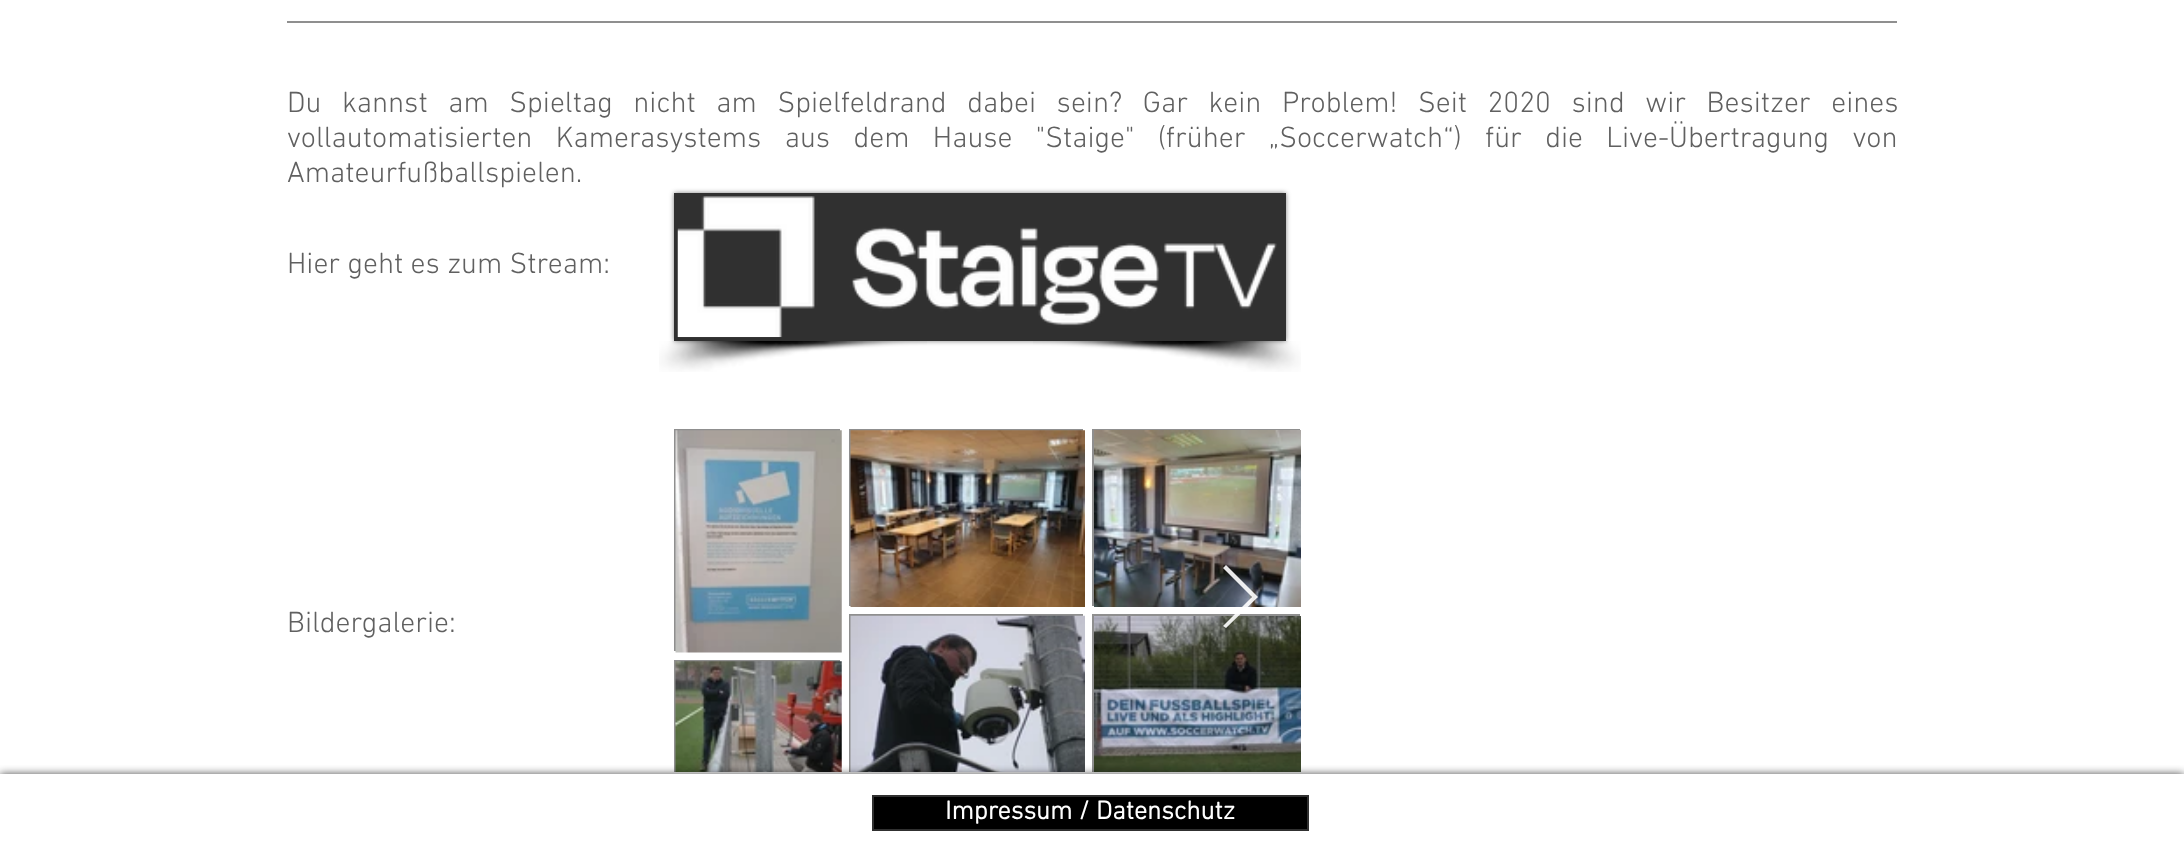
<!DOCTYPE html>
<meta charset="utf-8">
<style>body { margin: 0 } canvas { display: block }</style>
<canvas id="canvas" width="2184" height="849"></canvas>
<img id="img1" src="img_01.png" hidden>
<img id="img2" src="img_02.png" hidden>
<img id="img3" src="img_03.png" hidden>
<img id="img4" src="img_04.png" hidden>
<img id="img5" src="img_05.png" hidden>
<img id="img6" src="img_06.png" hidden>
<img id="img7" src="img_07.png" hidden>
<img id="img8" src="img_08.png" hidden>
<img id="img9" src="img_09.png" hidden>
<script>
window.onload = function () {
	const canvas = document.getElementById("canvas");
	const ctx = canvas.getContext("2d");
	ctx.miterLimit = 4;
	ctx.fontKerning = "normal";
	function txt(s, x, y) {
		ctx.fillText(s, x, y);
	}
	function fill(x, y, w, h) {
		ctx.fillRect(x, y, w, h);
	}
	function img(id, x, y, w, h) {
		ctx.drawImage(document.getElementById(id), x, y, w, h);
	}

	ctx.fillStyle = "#FFFFFF";
	fill(0, 0, 2184, 849);
	ctx.fillStyle = "#8F8F8F";
	fill(287, 21, 1610, 2);
	ctx.fillStyle = "rgba(0, 0, 0, 0.5)";
	ctx.filter = "blur(2.5px)";
	ctx.beginPath();
	ctx.rect(674, 193, 612, 148);
	ctx.fill();
	ctx.filter = "none";
	ctx.fillStyle = "#303030";
	fill(674, 193, 612, 148);
	img("img1", 677, 196, 600, 142);
	img("img2", 659, 341, 268, 31);
	img("img3", 1033, 341, 268, 31);
	ctx.fillStyle = "#8F8F8F";
	fill(674, 429, 166, 222);
	img("img4", 675, 430, 167, 223);
	fill(674, 660, 166, 112);
	img("img5", 675, 661, 167, 111);
	fill(849, 429, 234, 177);
	img("img6", 850, 430, 235, 177);
	fill(849, 614, 234, 158);
	img("img7", 850, 615, 235, 157);
	fill(1092, 429, 208, 177);
	img("img8", 1094, 430, 207, 177);
	fill(1092, 614, 208, 158);
	img("img9", 1094, 616, 207, 156);
	ctx.fillStyle = "rgba(255, 255, 255, 0.9)";
	ctx.beginPath();
	ctx.moveTo(1223, 568);
	ctx.lineTo(1226, 565);
	ctx.lineTo(1258, 597);
	ctx.lineTo(1226, 628);
	ctx.lineTo(1223, 626);
	ctx.lineTo(1252, 597);
	ctx.closePath();
	ctx.fill();
	ctx.save();
	ctx.beginPath();
	ctx.rect(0, 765, 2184, 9);
	ctx.clip();
	ctx.fillStyle = "rgba(0, 0, 0, 0.7)";
	ctx.filter = "blur(4.5px)";
	ctx.beginPath();
	ctx.rect(0, 774, 2184, 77);
	ctx.fill();
	ctx.filter = "none";
	ctx.restore();
	ctx.fillStyle = "#000000";
	ctx.beginPath();
	ctx.rect(873, 796, 435, 34);
	ctx.fill();
	ctx.strokeStyle = "#303030";
	ctx.lineWidth = 2;
	ctx.stroke();
	ctx.wordSpacing = "13.25px";
	ctx.font = "300 29.75px 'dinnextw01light'";
	ctx.fillStyle = "#606060";
	txt("Du kannst am Spieltag nicht am Spielfeldrand dabei sein? Gar kein Problem! Seit 2020 sind wir Besitzer eines", 287, 112);
	ctx.wordSpacing = "16px";
	txt("vollautomatisierten Kamerasystems aus dem Hause \"Staige\" (früher „Soccerwatch“) für die Live-Übertragung von", 287, 147);
	ctx.wordSpacing = "0px";
	txt("Amateurfußballspielen.", 287, 182);
	txt("Hier geht es zum Stream:", 287, 273);
	txt("Bildergalerie:", 287, 632);
	ctx.font = "bold 26.25px 'dinnextw01light'";
	ctx.fillStyle = "#FFFFFF";
	txt("Impressum / Datenschutz", 945, 819);
};
</script>
